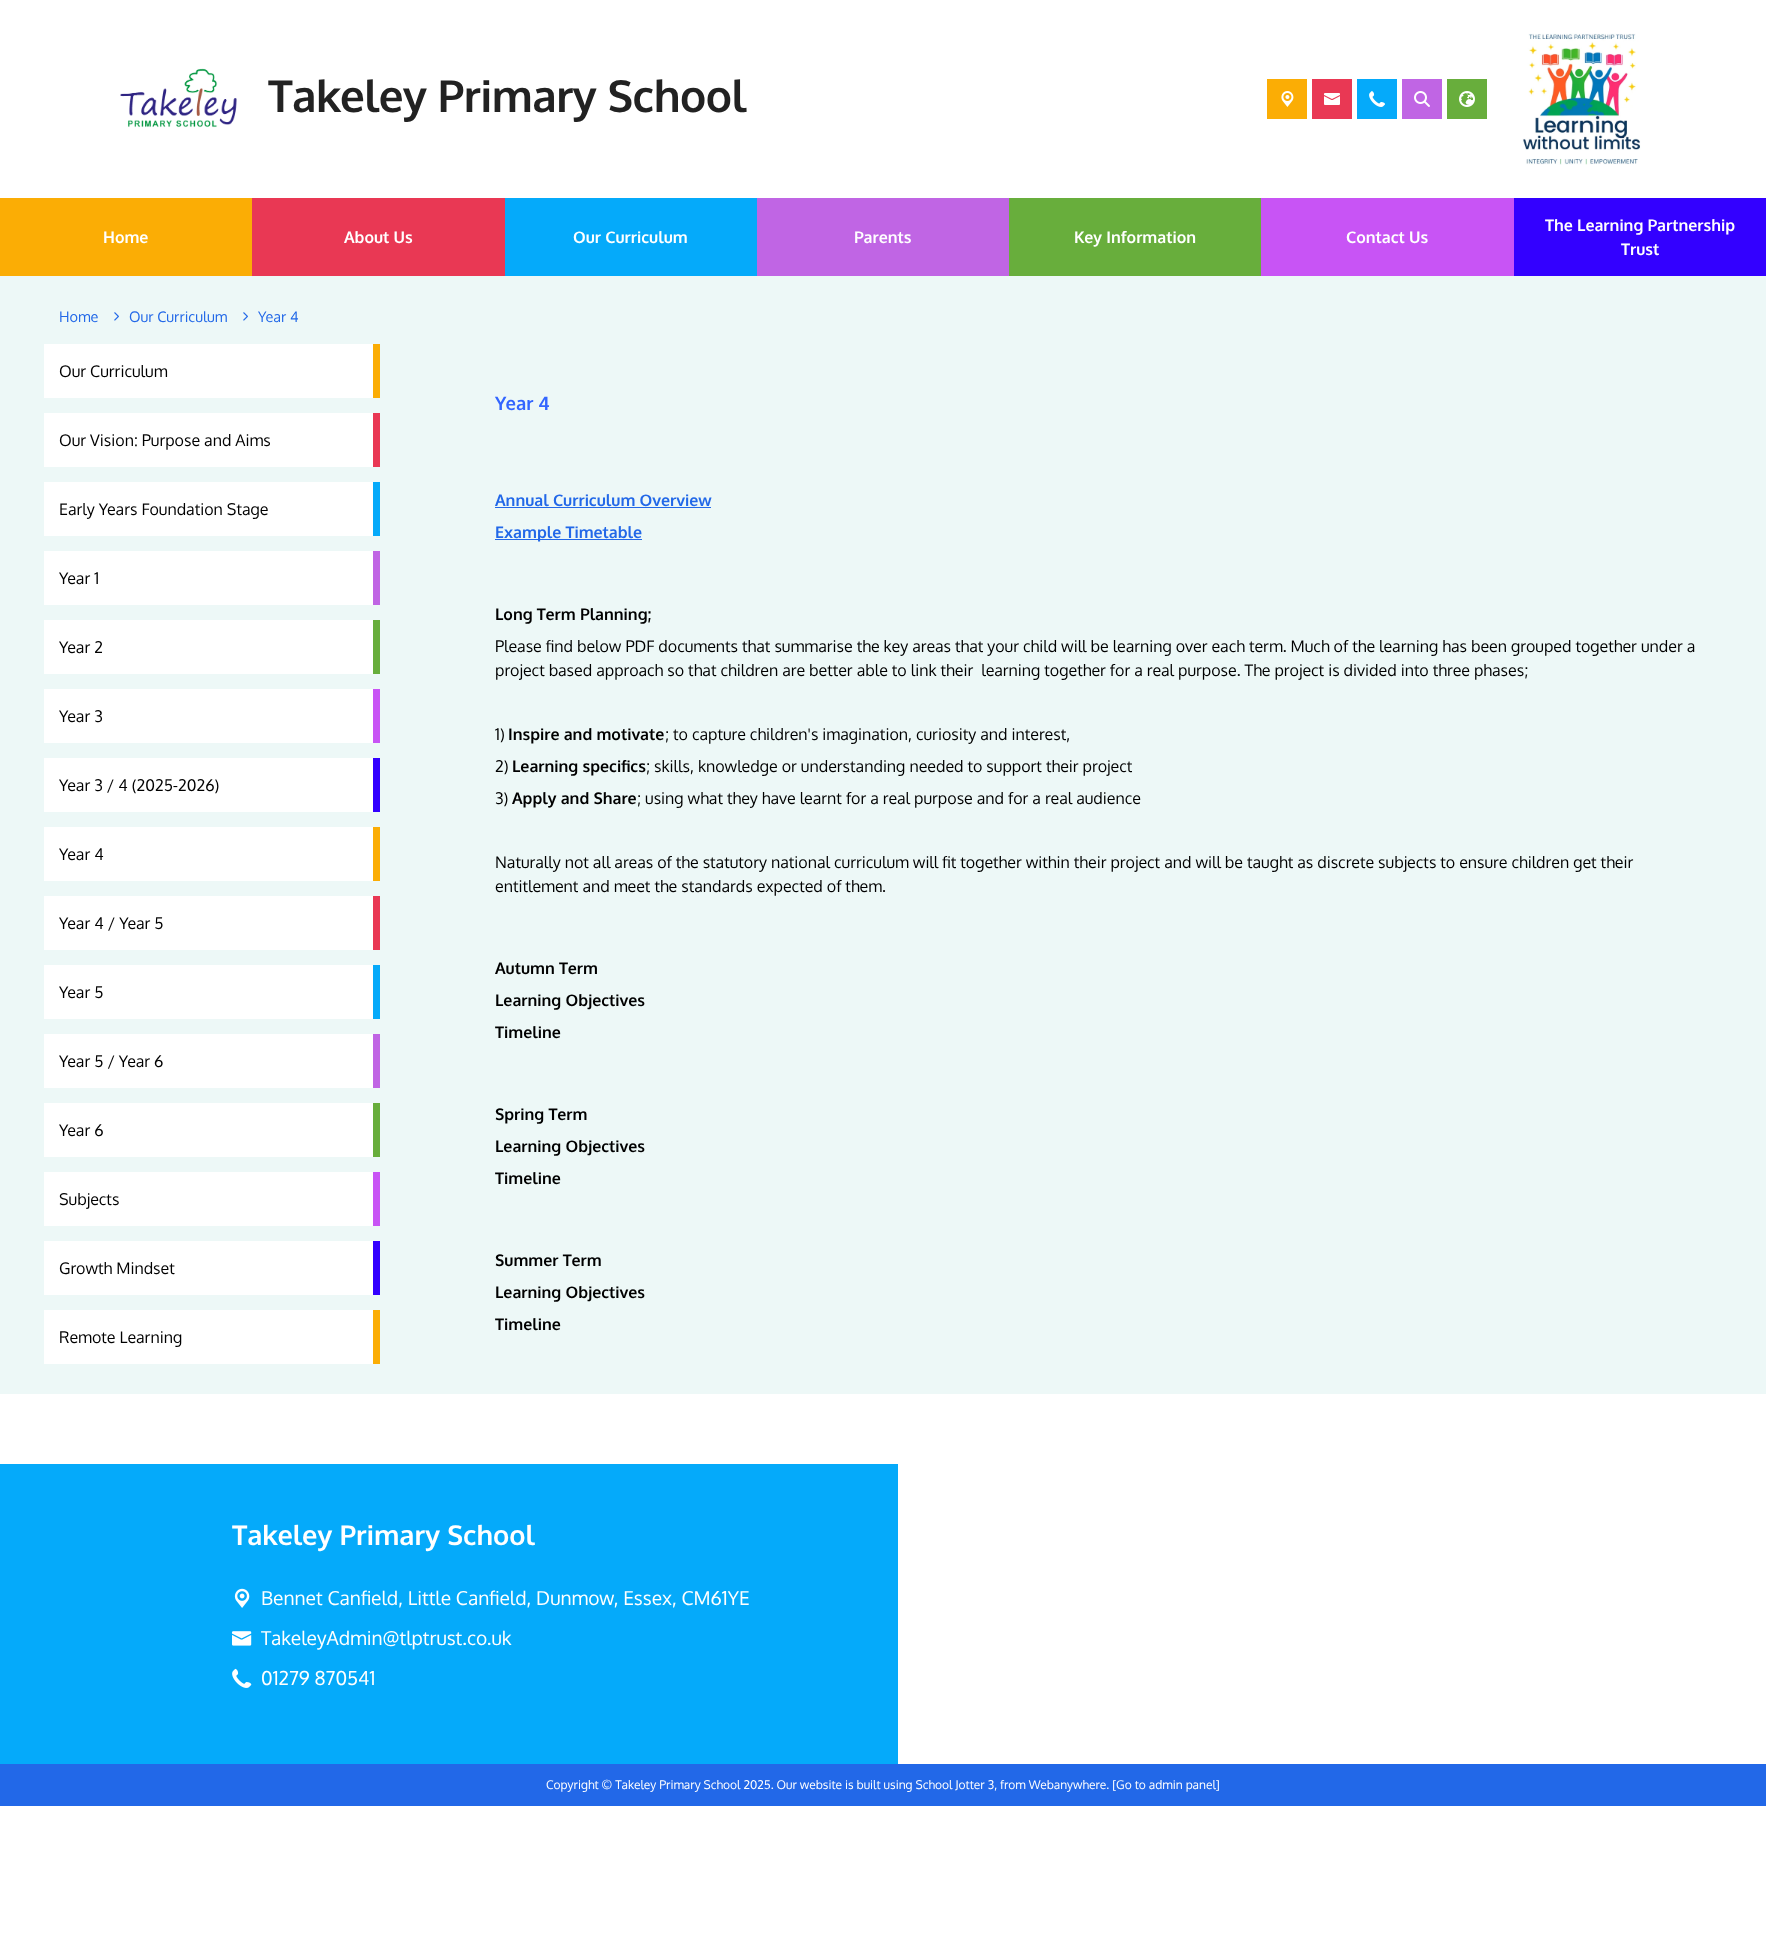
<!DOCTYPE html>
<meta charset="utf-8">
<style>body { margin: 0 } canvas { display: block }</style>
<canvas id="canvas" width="1766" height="1946"></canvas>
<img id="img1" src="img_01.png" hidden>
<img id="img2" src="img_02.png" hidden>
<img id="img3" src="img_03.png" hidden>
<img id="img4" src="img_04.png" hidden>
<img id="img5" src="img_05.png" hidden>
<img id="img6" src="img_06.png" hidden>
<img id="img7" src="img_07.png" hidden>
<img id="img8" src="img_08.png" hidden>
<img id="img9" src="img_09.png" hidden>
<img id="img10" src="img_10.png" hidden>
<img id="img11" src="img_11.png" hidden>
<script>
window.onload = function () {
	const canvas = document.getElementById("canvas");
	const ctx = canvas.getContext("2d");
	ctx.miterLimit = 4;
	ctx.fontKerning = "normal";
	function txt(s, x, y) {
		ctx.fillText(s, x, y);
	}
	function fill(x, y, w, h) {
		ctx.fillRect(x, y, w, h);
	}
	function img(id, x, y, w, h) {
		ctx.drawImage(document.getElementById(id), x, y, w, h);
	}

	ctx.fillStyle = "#FFFFFF";
	fill(0, 0, 1766, 1946);
	ctx.fillStyle = "#EDF8F7";
	fill(0, 276, 1766, 1118);
	img("img1", 120, 68, 117, 60);
	ctx.fillStyle = "#FBAD05";
	fill(1267, 79, 40, 40);
	img("img2", 1281, 91, 13, 16);
	ctx.fillStyle = "#E93854";
	fill(1312, 79, 40, 40);
	img("img3", 1324, 93, 16, 12);
	ctx.fillStyle = "#05AAFA";
	fill(1357, 79, 40, 40);
	img("img4", 1369, 91, 16, 16);
	ctx.fillStyle = "#C065E4";
	fill(1402, 79, 40, 40);
	img("img5", 1414, 91, 16, 16);
	ctx.fillStyle = "#68AE3C";
	fill(1447, 79, 40, 40);
	img("img6", 1459, 91, 16, 16);
	img("img7", 1522, 33, 119, 132);
	ctx.fillStyle = "#FBAD05";
	fill(0, 198, 252, 78);
	ctx.fillStyle = "#E93854";
	fill(252, 198, 253, 78);
	ctx.fillStyle = "#05AAFA";
	fill(505, 198, 252, 78);
	ctx.fillStyle = "#C065E4";
	fill(757, 198, 252, 78);
	ctx.fillStyle = "#68AE3C";
	fill(1009, 198, 252, 78);
	ctx.fillStyle = "#C854F5";
	fill(1261, 198, 253, 78);
	ctx.fillStyle = "#3300FF";
	fill(1514, 198, 252, 78);
	img("img8", 114, 312, 5, 9);
	img("img8", 243, 312, 5, 9);
	ctx.fillStyle = "#FFFFFF";
	fill(44, 344, 329, 54);
	ctx.fillStyle = "#FBAD05";
	fill(373, 344, 7, 54);
	ctx.fillStyle = "#FFFFFF";
	fill(44, 413, 329, 54);
	ctx.fillStyle = "#E93854";
	fill(373, 413, 7, 54);
	ctx.fillStyle = "#FFFFFF";
	fill(44, 482, 329, 54);
	ctx.fillStyle = "#05AAFA";
	fill(373, 482, 7, 54);
	ctx.fillStyle = "#FFFFFF";
	fill(44, 551, 329, 54);
	ctx.fillStyle = "#C065E4";
	fill(373, 551, 7, 54);
	ctx.fillStyle = "#FFFFFF";
	fill(44, 620, 329, 54);
	ctx.fillStyle = "#68AE3C";
	fill(373, 620, 7, 54);
	ctx.fillStyle = "#FFFFFF";
	fill(44, 689, 329, 54);
	ctx.fillStyle = "#C854F5";
	fill(373, 689, 7, 54);
	ctx.fillStyle = "#FFFFFF";
	fill(44, 758, 329, 54);
	ctx.fillStyle = "#3300FF";
	fill(373, 758, 7, 54);
	ctx.fillStyle = "#FFFFFF";
	fill(44, 827, 329, 54);
	ctx.fillStyle = "#FBAD05";
	fill(373, 827, 7, 54);
	ctx.fillStyle = "#FFFFFF";
	fill(44, 896, 329, 54);
	ctx.fillStyle = "#E93854";
	fill(373, 896, 7, 54);
	ctx.fillStyle = "#FFFFFF";
	fill(44, 965, 329, 54);
	ctx.fillStyle = "#05AAFA";
	fill(373, 965, 7, 54);
	ctx.fillStyle = "#FFFFFF";
	fill(44, 1034, 329, 54);
	ctx.fillStyle = "#C065E4";
	fill(373, 1034, 7, 54);
	ctx.fillStyle = "#FFFFFF";
	fill(44, 1103, 329, 54);
	ctx.fillStyle = "#68AE3C";
	fill(373, 1103, 7, 54);
	ctx.fillStyle = "#FFFFFF";
	fill(44, 1172, 329, 54);
	ctx.fillStyle = "#C854F5";
	fill(373, 1172, 7, 54);
	ctx.fillStyle = "#FFFFFF";
	fill(44, 1241, 329, 54);
	ctx.fillStyle = "#3300FF";
	fill(373, 1241, 7, 54);
	ctx.fillStyle = "#FFFFFF";
	fill(44, 1310, 329, 54);
	ctx.fillStyle = "#FBAD05";
	fill(373, 1310, 7, 54);
	ctx.fillStyle = "#2268E8";
	fill(495, 507, 216, 1);
	fill(495, 539, 147, 1);
	ctx.fillStyle = "#05AAFA";
	fill(0, 1464, 898, 300);
	img("img9", 234, 1588, 16, 20);
	img("img10", 232, 1631, 20, 15);
	img("img11", 232, 1668, 20, 20);
	ctx.fillStyle = "#2268E8";
	fill(0, 1764, 1766, 42);
	ctx.letterSpacing = "-0.5px";
	ctx.font = "bold 44px Oxygen";
	ctx.fillStyle = "#222222";
	txt("Takeley Primary School", 268, 112);
	ctx.letterSpacing = "0px";
	ctx.font = "bold 16px Oxygen";
	ctx.fillStyle = "#FFFFFF";
	txt("Home", 103, 243);
	txt("About Us", 344, 243);
	txt("Our Curriculum", 573, 243);
	txt("Parents", 854, 243);
	txt("Key Information", 1074, 243);
	txt("Contact Us", 1346, 243);
	txt("The Learning Partnership", 1545, 231);
	txt("Trust", 1621, 255);
	ctx.font = "14.5px Oxygen";
	ctx.fillStyle = "#2268E8";
	txt("Home", 59, 322);
	txt("Our Curriculum", 129, 322);
	txt("Year 4", 258, 322);
	ctx.font = "16px Oxygen";
	ctx.fillStyle = "#000000";
	txt("Our Curriculum", 59, 377);
	txt("Our Vision: Purpose and Aims", 59, 446);
	txt("Early Years Foundation Stage", 59, 515);
	txt("Year 1", 59, 584);
	txt("Year 2", 59, 653);
	txt("Year 3", 59, 722);
	txt("Year 3 / 4 (2025-2026)", 59, 791);
	txt("Year 4", 59, 860);
	txt("Year 4 / Year 5", 59, 929);
	txt("Year 5", 59, 998);
	txt("Year 5 / Year 6", 59, 1067);
	txt("Year 6", 59, 1136);
	txt("Subjects", 59, 1205);
	txt("Growth Mindset", 59, 1274);
	txt("Remote Learning", 59, 1343);
	ctx.font = "bold 18.5px Oxygen";
	ctx.fillStyle = "#3366FF";
	txt("Year 4", 495, 410);
	ctx.font = "bold 16px Oxygen";
	ctx.fillStyle = "#2268E8";
	txt("Annual Curriculum Overview", 495, 506);
	txt("Example Timetable", 495, 538);
	ctx.fillStyle = "#000000";
	txt("Long Term Planning;", 495, 620);
	ctx.font = "16px Oxygen";
	txt("Please find below PDF documents that summarise the key areas that your child will be learning over each term. Much of the learning has been grouped together under a", 495, 652);
	txt("project based approach so that children are better able to link their  learning together for a real purpose. The project is divided into three phases;", 495, 676);
	txt("1)", 495, 740);
	ctx.font = "bold 16px Oxygen";
	txt("Inspire and motivate", 508, 740);
	ctx.font = "16px Oxygen";
	txt("; to capture children's imagination, curiosity and interest,", 665, 740);
	txt("2)", 495, 772);
	ctx.font = "bold 16px Oxygen";
	txt("Learning specifics", 512, 772);
	ctx.font = "16px Oxygen";
	txt("; skills, knowledge or understanding needed to support their project", 646, 772);
	txt("3)", 495, 804);
	ctx.font = "bold 16px Oxygen";
	txt("Apply and Share", 512, 804);
	ctx.font = "16px Oxygen";
	txt("; using what they have learnt for a real purpose and for a real audience", 637, 804);
	txt("Naturally not all areas of the statutory national curriculum will fit together within their project and will be taught as discrete subjects to ensure children get their", 495, 868);
	txt("entitlement and meet the standards expected of them.", 495, 892);
	ctx.font = "bold 16px Oxygen";
	txt("Autumn Term", 495, 974);
	txt("Learning Objectives", 495, 1006);
	txt("Timeline", 495, 1038);
	txt("Spring Term", 495, 1120);
	txt("Learning Objectives", 495, 1152);
	txt("Timeline", 495, 1184);
	txt("Summer Term", 495, 1266);
	txt("Learning Objectives", 495, 1298);
	txt("Timeline", 495, 1330);
	ctx.font = "bold 27.25px Oxygen";
	ctx.fillStyle = "#FFFFFF";
	txt("Takeley Primary School", 232, 1545);
	ctx.font = "19.2px Oxygen";
	txt("Bennet Canfield, Little Canfield, Dunmow, Essex, CM61YE", 261, 1605);
	txt("TakeleyAdmin@tlptrust.co.uk", 261, 1645);
	txt("01279 870541", 261, 1685);
	ctx.font = "12px Oxygen";
	txt("Copyright © Takeley Primary School 2025. Our website is built using School Jotter 3, from Webanywhere. [Go to admin panel]", 546, 1789);
};
</script>
